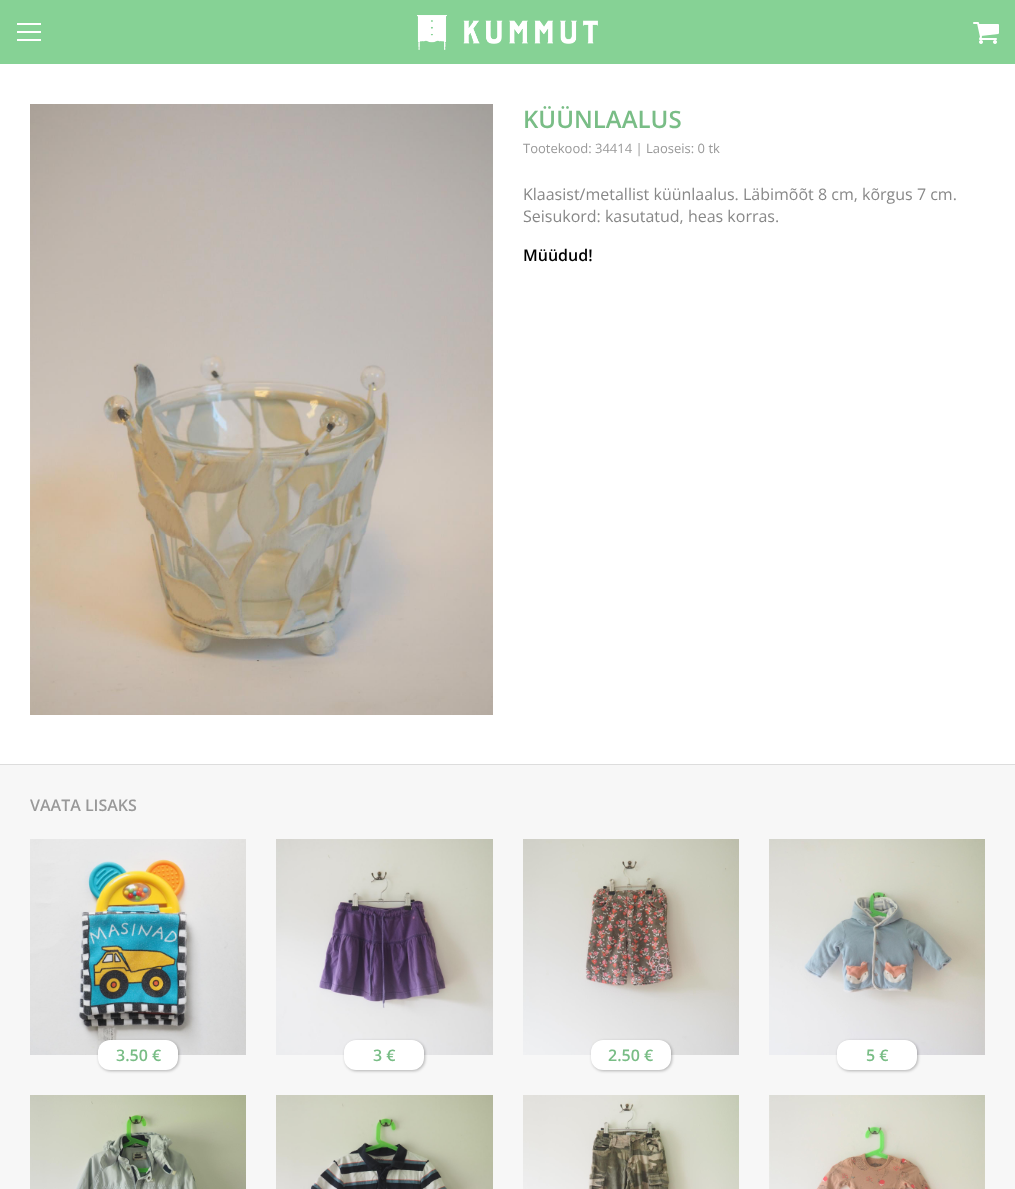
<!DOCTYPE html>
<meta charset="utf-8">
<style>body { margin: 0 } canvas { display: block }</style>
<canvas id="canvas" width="1015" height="1189"></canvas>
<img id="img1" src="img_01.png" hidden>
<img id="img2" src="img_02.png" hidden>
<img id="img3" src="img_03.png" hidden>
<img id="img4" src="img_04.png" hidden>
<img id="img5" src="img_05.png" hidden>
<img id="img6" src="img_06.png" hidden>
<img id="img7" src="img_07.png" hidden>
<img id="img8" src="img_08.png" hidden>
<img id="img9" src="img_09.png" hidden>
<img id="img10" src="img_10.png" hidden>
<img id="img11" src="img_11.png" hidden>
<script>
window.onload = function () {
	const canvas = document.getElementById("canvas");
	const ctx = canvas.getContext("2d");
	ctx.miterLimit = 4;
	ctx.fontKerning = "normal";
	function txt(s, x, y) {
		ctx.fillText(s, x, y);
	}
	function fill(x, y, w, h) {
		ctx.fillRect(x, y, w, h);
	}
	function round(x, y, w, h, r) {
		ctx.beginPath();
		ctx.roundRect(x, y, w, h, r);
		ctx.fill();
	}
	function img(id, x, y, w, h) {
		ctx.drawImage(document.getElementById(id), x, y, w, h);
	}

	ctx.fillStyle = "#FFFFFF";
	fill(0, 0, 1015, 1189);
	ctx.fillStyle = "#86D295";
	fill(0, 0, 1015, 64);
	ctx.fillStyle = "#FFFFFF";
	fill(17, 23, 24, 2);
	fill(17, 31, 24, 2);
	fill(17, 39, 24, 2);
	img("img1", 417, 15, 181, 35);
	img("img2", 973, 22, 26, 22);
	img("img3", 30, 104, 463, 611);
	ctx.fillStyle = "#F7F7F7";
	fill(0, 765, 1015, 424);
	ctx.fillStyle = "#DDDDDD";
	fill(0, 764, 1015, 1);
	img("img4", 30, 839, 216, 216);
	ctx.fillStyle = "rgba(0, 0, 0, 0.28)";
	ctx.filter = "blur(1.5px)";
	ctx.beginPath();
	ctx.roundRect(99, 1041, 80, 30, 12);
	ctx.fill();
	ctx.filter = "none";
	ctx.fillStyle = "#FFFFFF";
	round(98, 1040, 80, 30, 12);
	img("img5", 276, 839, 217, 216);
	ctx.fillStyle = "rgba(0, 0, 0, 0.28)";
	ctx.filter = "blur(1.5px)";
	ctx.beginPath();
	ctx.roundRect(345, 1041, 80, 30, 12);
	ctx.fill();
	ctx.filter = "none";
	ctx.fillStyle = "#FFFFFF";
	round(344, 1040, 80, 30, 12);
	img("img6", 523, 839, 216, 216);
	ctx.fillStyle = "rgba(0, 0, 0, 0.28)";
	ctx.filter = "blur(1.5px)";
	ctx.beginPath();
	ctx.roundRect(592, 1041, 80, 30, 12);
	ctx.fill();
	ctx.filter = "none";
	ctx.fillStyle = "#FFFFFF";
	round(591, 1040, 80, 30, 12);
	img("img7", 769, 839, 216, 216);
	ctx.fillStyle = "rgba(0, 0, 0, 0.28)";
	ctx.filter = "blur(1.5px)";
	ctx.beginPath();
	ctx.roundRect(838, 1041, 80, 30, 12);
	ctx.fill();
	ctx.filter = "none";
	ctx.fillStyle = "#FFFFFF";
	round(837, 1040, 80, 30, 12);
	img("img8", 30, 1095, 216, 94);
	img("img9", 276, 1095, 217, 94);
	img("img10", 523, 1095, 216, 94);
	img("img11", 769, 1095, 216, 94);
	ctx.font = "600 24px Open Sans";
	ctx.fillStyle = "#79BD86";
	txt("KÜÜNLAALUS", 523, 128);
	ctx.font = "13px Open Sans";
	ctx.fillStyle = "#999999";
	txt("Tootekood: 34414 | Laoseis: 0 tk", 523, 153);
	ctx.font = "16px Open Sans";
	ctx.fillStyle = "#888888";
	txt("Klaasist/metallist küünlaalus. Läbimõõt 8 cm, kõrgus 7 cm.", 523, 200);
	txt("Seisukord: kasutatud, heas korras.", 523, 222);
	ctx.font = "600 16px Open Sans";
	ctx.fillStyle = "#000000";
	txt("Müüdud!", 523, 261);
	ctx.fillStyle = "#999999";
	txt("VAATA LISAKS", 30, 811);
	ctx.fillStyle = "#79BD86";
	txt("3.50 €", 116, 1061);
	txt("3 €", 373, 1061);
	txt("2.50 €", 608, 1061);
	txt("5 €", 866, 1061);
};
</script>
